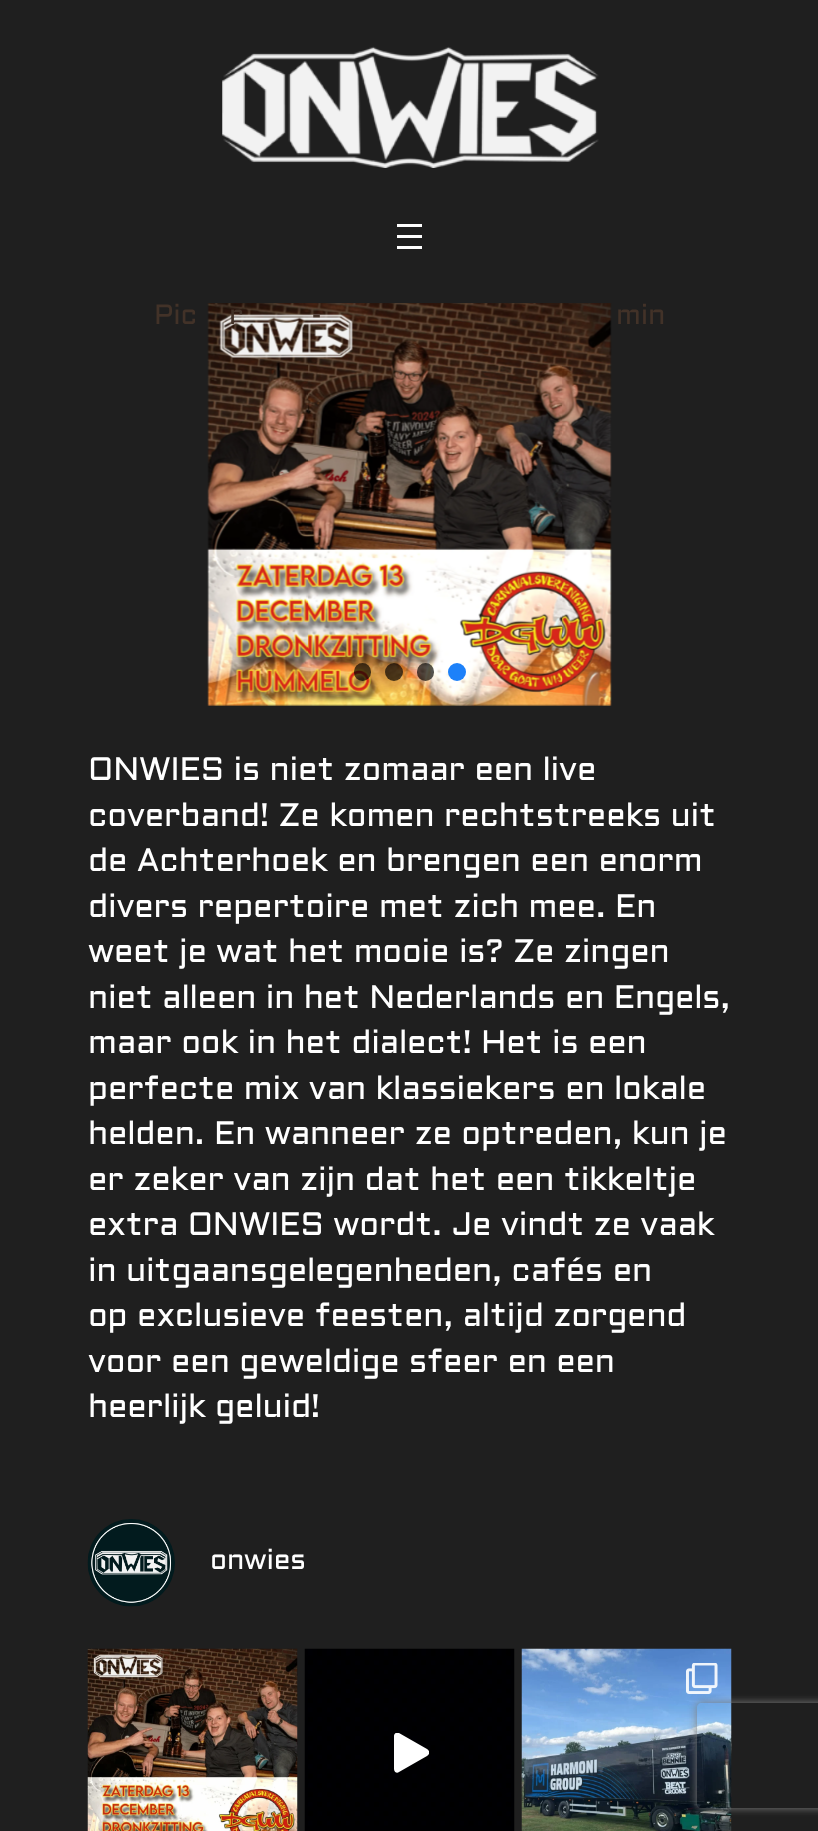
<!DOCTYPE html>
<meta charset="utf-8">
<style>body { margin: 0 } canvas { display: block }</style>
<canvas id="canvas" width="818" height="1831"></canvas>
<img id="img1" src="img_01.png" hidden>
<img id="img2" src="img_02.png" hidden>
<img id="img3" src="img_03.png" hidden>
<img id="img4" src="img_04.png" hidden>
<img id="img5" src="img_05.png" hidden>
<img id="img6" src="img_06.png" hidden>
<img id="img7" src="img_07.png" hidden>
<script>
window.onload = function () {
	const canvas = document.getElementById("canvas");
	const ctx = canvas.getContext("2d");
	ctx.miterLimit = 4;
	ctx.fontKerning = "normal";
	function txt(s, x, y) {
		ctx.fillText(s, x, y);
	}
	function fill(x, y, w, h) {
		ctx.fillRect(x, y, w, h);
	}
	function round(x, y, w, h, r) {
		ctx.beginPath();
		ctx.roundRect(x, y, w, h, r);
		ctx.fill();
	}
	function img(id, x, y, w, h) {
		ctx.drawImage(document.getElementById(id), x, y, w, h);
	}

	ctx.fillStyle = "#1F1F1F";
	fill(0, 0, 818, 1831);
	img("img1", 222, 46, 377, 122);
	ctx.fillStyle = "#FFFFFF";
	fill(397, 224, 25, 3);
	fill(397, 235, 25, 3);
	fill(397, 246, 25, 3);
	img("img2", 207, 303, 405, 403);
	ctx.fillStyle = "rgba(0, 0, 0, 0.67)";
	round(354, 663, 17, 18, 8.5);
	ctx.beginPath();
	ctx.arc(394, 672, 9, 0, Math.PI * 2);
	ctx.fill();
	round(417, 663, 17, 18, 8.5);
	ctx.fillStyle = "#1D81F9";
	ctx.beginPath();
	ctx.arc(457, 672, 9, 0, Math.PI * 2);
	ctx.fill();
	img("img3", 87, 1519, 88, 88);
	img("img4", 87, 1648, 211, 183);
	img("img5", 304, 1648, 211, 183);
	ctx.save();
	ctx.beginPath();
	ctx.rect(394, 1733, 35, 40);
	ctx.clip();
	ctx.fillStyle = "#FFFFFF";
	ctx.beginPath();
	ctx.moveTo(427, 1749);
	ctx.lineTo(399, 1733);
	ctx.bezierCurveTo(397, 1732, 394, 1733, 394, 1736);
	ctx.lineTo(394, 1769);
	ctx.bezierCurveTo(394, 1772, 397, 1774, 399, 1772);
	ctx.lineTo(427, 1756);
	ctx.bezierCurveTo(430, 1754, 430, 1751, 427, 1749);
	ctx.closePath();
	ctx.fill();
	ctx.restore();
	img("img6", 521, 1648, 211, 183);
	ctx.save();
	ctx.beginPath();
	ctx.moveTo(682, 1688);
	ctx.lineTo(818, 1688);
	ctx.lineTo(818, 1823);
	ctx.lineTo(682, 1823);
	ctx.closePath();
	ctx.moveTo(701, 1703);
	ctx.lineTo(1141, 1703);
	ctx.bezierCurveTo(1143, 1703, 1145, 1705, 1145, 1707);
	ctx.lineTo(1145, 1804);
	ctx.bezierCurveTo(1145, 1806, 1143, 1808, 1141, 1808);
	ctx.lineTo(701, 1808);
	ctx.bezierCurveTo(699, 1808, 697, 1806, 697, 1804);
	ctx.lineTo(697, 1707);
	ctx.bezierCurveTo(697, 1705, 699, 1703, 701, 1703);
	ctx.closePath();
	ctx.clip("evenodd");
	ctx.fillStyle = "#808080";
	ctx.filter = "blur(4.5px)";
	ctx.beginPath();
	ctx.roundRect(697, 1703, 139, 105, 4);
	ctx.fill();
	ctx.filter = "none";
	ctx.restore();
	img("img7", 686, 1663, 32, 31);
	ctx.letterSpacing = "-0.2px";
	ctx.font = "28px Aldrich";
	ctx.fillStyle = "#423228";
	txt("Pic", 154, 324);
	txt("r", 229, 324);
	txt("-", 311, 324);
	txt("min", 616, 324);
	ctx.font = "32.5px Aldrich";
	ctx.fillStyle = "#FFFFFF";
	txt("ONWIES is niet zomaar een live", 88, 780);
	txt("coverband! Ze komen rechtstreeks uit", 88, 826);
	txt("de Achterhoek en brengen een enorm", 88, 871);
	txt("divers repertoire met zich mee. En", 88, 917);
	txt("weet je wat het mooie is? Ze zingen", 88, 962);
	txt("niet alleen in het Nederlands en Engels,", 88, 1008);
	txt("maar ook in het dialect! Het is een", 88, 1053);
	txt("perfecte mix van klassiekers en lokale", 88, 1099);
	txt("helden. En wanneer ze optreden, kun je", 88, 1144);
	txt("er zeker van zijn dat het een tikkeltje", 88, 1190);
	txt("extra ONWIES wordt. Je vindt ze vaak", 88, 1235);
	txt("in uitgaansgelegenheden, cafés en", 88, 1281);
	txt("op exclusieve feesten, altijd zorgend", 88, 1326);
	txt("voor een geweldige sfeer en een", 88, 1372);
	txt("heerlijk geluid!", 88, 1417);
	ctx.font = "28px Aldrich";
	txt("onwies", 210, 1569);
};
</script>
